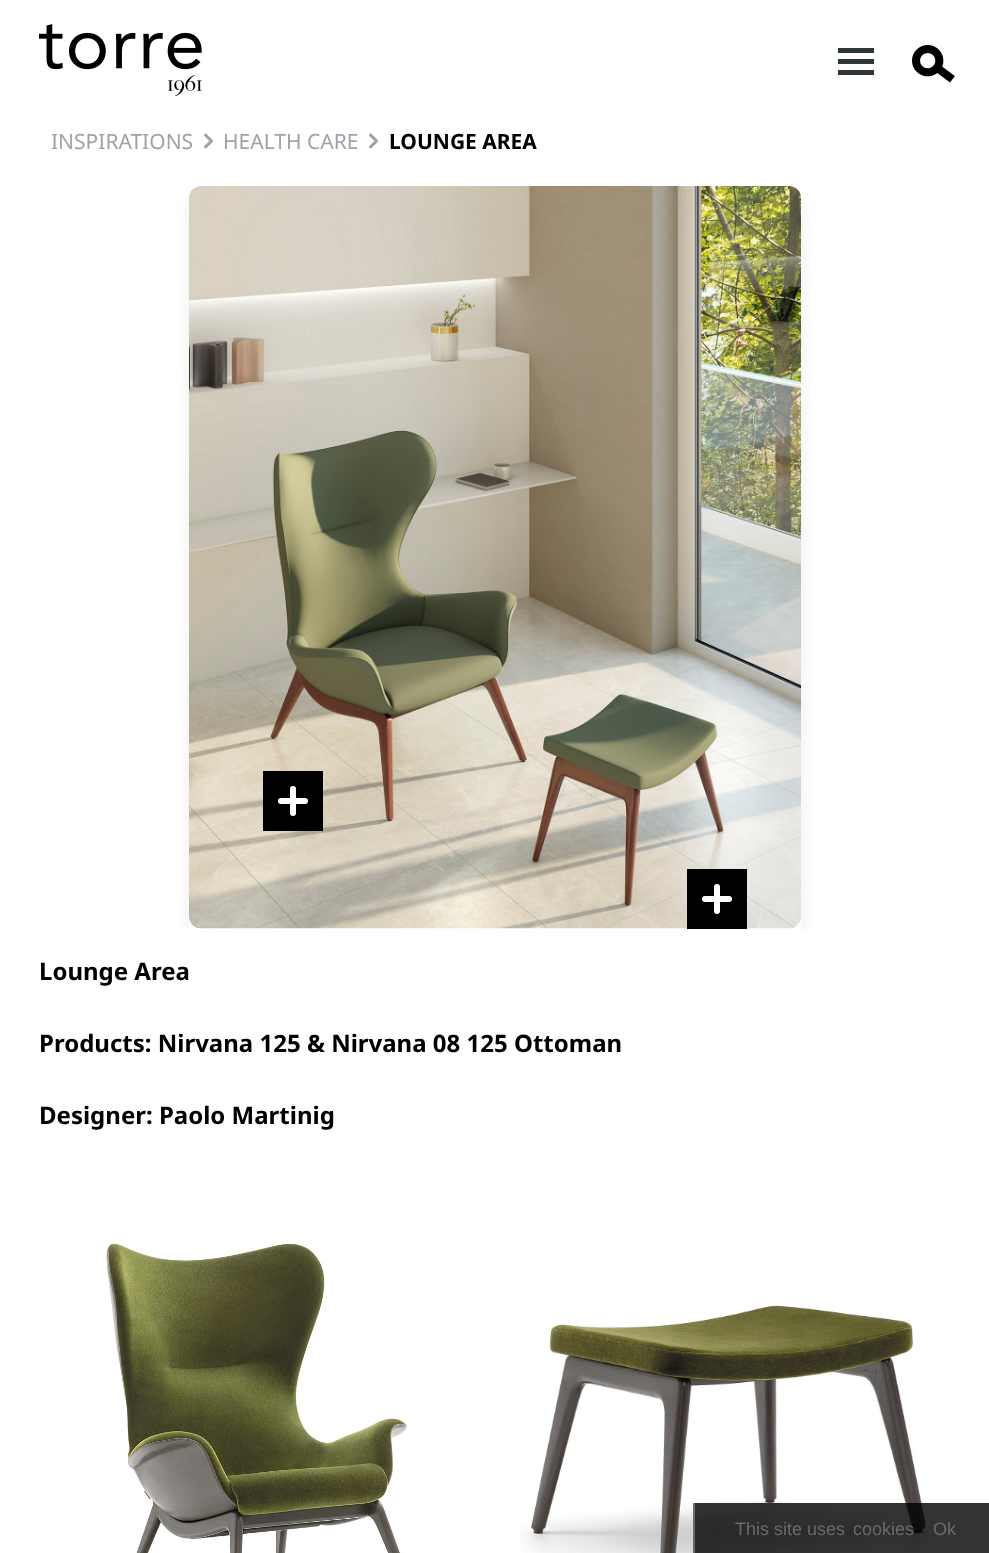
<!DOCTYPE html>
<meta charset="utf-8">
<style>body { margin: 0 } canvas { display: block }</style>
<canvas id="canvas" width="989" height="1553"></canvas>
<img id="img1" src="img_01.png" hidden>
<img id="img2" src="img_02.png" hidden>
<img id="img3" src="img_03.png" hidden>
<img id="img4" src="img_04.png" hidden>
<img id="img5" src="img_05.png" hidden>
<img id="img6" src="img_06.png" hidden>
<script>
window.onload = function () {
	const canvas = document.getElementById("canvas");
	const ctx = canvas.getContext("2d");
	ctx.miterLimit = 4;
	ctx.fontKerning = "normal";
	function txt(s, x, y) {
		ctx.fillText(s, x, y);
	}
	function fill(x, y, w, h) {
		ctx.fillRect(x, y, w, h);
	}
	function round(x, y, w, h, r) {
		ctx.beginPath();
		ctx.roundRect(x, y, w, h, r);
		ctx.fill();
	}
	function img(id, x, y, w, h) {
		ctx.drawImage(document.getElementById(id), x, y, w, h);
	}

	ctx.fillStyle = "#FFFFFF";
	fill(0, 0, 989, 1553);
	img("img1", 39, 24, 163, 72);
	ctx.fillStyle = "#303738";
	fill(838, 48, 36, 5);
	fill(838, 70, 36, 5);
	fill(838, 59, 36, 5);
	img("img2", 912, 45, 43, 38);
	img("img3", 204, 133, 9, 16);
	img("img3", 369, 133, 9, 16);
	ctx.save();
	ctx.beginPath();
	ctx.rect(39, 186, 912, 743);
	ctx.clip();
	ctx.beginPath();
	ctx.moveTo(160, 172);
	ctx.lineTo(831, 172);
	ctx.lineTo(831, 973);
	ctx.lineTo(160, 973);
	ctx.closePath();
	ctx.moveTo(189, 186);
	ctx.lineTo(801, 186);
	ctx.lineTo(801, 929);
	ctx.lineTo(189, 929);
	ctx.closePath();
	ctx.clip("evenodd");
	ctx.fillStyle = "rgba(0, 0, 0, 0.1)";
	ctx.filter = "blur(11px)";
	ctx.beginPath();
	ctx.rect(194, 206, 603, 733);
	ctx.fill();
	ctx.filter = "none";
	ctx.restore();
	img("img4", 189, 186, 612, 743);
	ctx.fillStyle = "#000000";
	fill(263, 771, 60, 60);
	ctx.fillStyle = "#FFFFFF";
	round(290, 786, 6, 30, 3);
	round(278, 798, 30, 6, 3);
	ctx.fillStyle = "#000000";
	fill(687, 869, 60, 60);
	ctx.fillStyle = "#FFFFFF";
	round(714, 884, 6, 30, 3);
	round(702, 896, 30, 6, 3);
	img("img5", 105, 1240, 302, 313);
	img("img6", 520, 1305, 417, 248);
	ctx.fillStyle = "rgba(0, 0, 0, 0.8)";
	fill(693, 1503, 296, 50);
	ctx.fillStyle = "rgba(255, 255, 255, 0.3)";
	fill(693, 1503, 2, 50);
	ctx.font = "21px Noto Sans";
	ctx.fillStyle = "#A1A1AA";
	txt("INSPIRATIONS", 51, 149);
	txt("HEALTH CARE", 223, 149);
	ctx.font = "bold 21px Noto Sans";
	ctx.fillStyle = "#000000";
	txt("LOUNGE AREA", 389, 149);
	ctx.font = "bold 24px Noto Sans";
	txt("Lounge Area", 39, 980);
	txt("Products: Nirvana 125 & Nirvana 08 125 Ottoman", 39, 1052);
	txt("Designer: Paolo Martinig", 39, 1124);
	ctx.font = "18px Liberation Sans";
	ctx.fillStyle = "#6A6A6A";
	txt("This site uses", 735, 1535);
	txt("cookies", 853, 1535);
	txt("Ok", 933, 1535);
};
</script>
